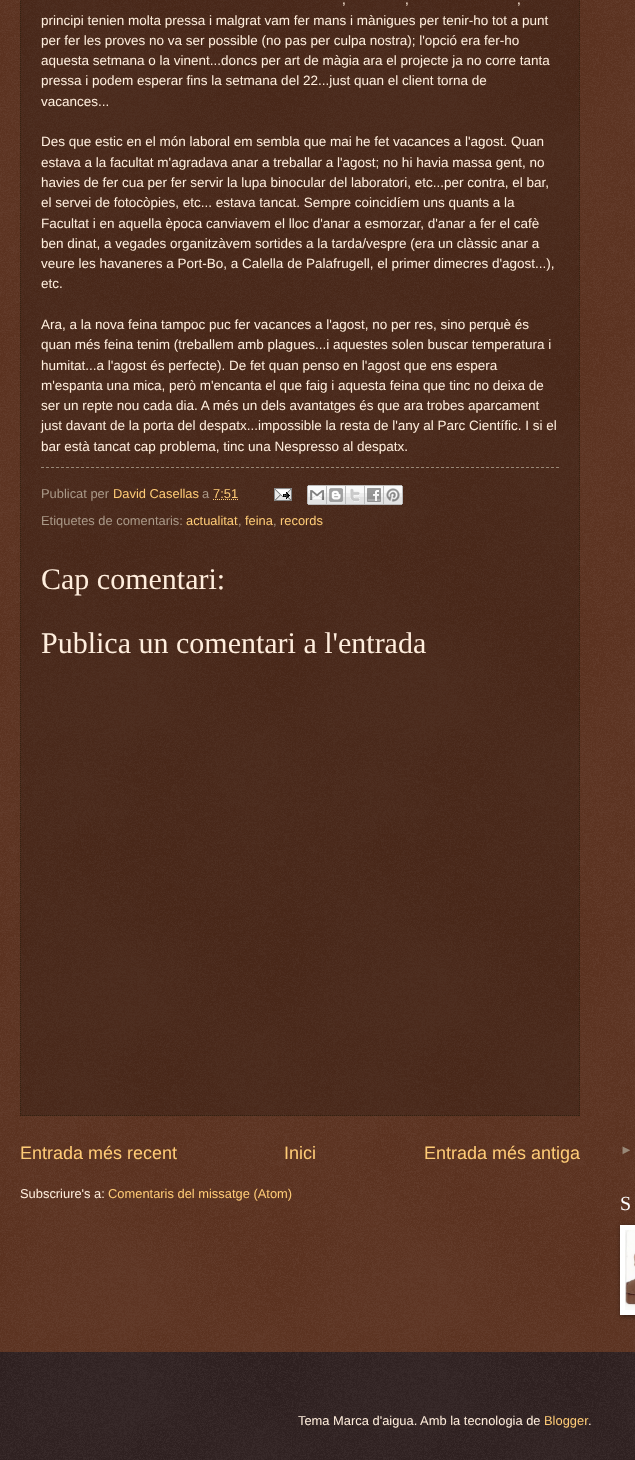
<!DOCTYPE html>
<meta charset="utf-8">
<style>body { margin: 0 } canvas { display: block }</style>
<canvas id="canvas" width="635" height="1460"></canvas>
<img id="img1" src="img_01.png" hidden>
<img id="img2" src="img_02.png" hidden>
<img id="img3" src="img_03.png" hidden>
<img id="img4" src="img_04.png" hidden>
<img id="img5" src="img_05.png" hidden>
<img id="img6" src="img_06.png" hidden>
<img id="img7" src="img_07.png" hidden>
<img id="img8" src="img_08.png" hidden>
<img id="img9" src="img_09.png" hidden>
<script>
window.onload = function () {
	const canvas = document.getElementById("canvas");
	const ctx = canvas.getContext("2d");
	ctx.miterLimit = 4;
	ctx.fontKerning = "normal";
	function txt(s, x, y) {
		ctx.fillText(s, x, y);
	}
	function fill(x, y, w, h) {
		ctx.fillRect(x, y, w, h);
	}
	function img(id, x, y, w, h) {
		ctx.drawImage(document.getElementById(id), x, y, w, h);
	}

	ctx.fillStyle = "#441500";
	fill(0, 0, 635, 1460);
	img("img1", 0, 0, 635, 1352);
	ctx.fillStyle = "rgba(0, 0, 0, 0.2)";
	fill(20, 0, 560, 1116);
	ctx.beginPath();
	ctx.moveTo(579.5, -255);
	ctx.lineTo(579.5, 1116);
	ctx.strokeStyle = "#332211";
	ctx.setLineDash([1, 1]);
	ctx.stroke();
	ctx.beginPath();
	ctx.moveTo(20, 1115.5);
	ctx.lineTo(580, 1115.5);
	ctx.stroke();
	ctx.beginPath();
	ctx.moveTo(20.5, -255);
	ctx.lineTo(20.5, 1116);
	ctx.stroke();
	ctx.beginPath();
	ctx.moveTo(41, 467.5);
	ctx.lineTo(559, 467.5);
	ctx.strokeStyle = "#998877";
	ctx.setLineDash([3, 2]);
	ctx.stroke();
	ctx.beginPath();
	ctx.moveTo(213, 499.5);
	ctx.lineTo(238, 499.5);
	ctx.strokeStyle = "#FFCC77";
	ctx.setLineDash([1, 1]);
	ctx.stroke();
	img("img2", 274, 488, 18, 13);
	img("img3", 307, 485, 20, 20);
	img("img4", 327, 485, 19, 20);
	img("img5", 346, 485, 19, 20);
	img("img6", 365, 485, 19, 20);
	img("img7", 384, 485, 19, 20);
	ctx.fillStyle = "rgba(0, 0, 0, 0.5)";
	ctx.filter = "blur(2.5px)";
	ctx.beginPath();
	ctx.rect(621, 1226, 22, 90);
	ctx.fill();
	ctx.filter = "none";
	ctx.fillStyle = "#FFFFFF";
	fill(620, 1225, 15, 90);
	img("img8", 625, 1230, 10, 80);
	ctx.fillStyle = "#110000";
	fill(0, 1352, 635, 108);
	img("img9", 0, 1352, 635, 108);
	ctx.font = "13.5px Liberation Sans";
	ctx.fillStyle = "#FFEEDD";
	txt(",", 342, 4);
	txt(",", 405, 4);
	txt(",", 517, 4);
	txt("principi tenien molta pressa i malgrat vam fer mans i mànigues per tenir-ho tot a punt", 41, 25);
	txt("per fer les proves no va ser possible (no pas per culpa nostra); l'opció era fer-ho", 41, 45);
	txt("aquesta setmana o la vinent...doncs per art de màgia ara el projecte ja no corre tanta", 41, 65);
	txt("pressa i podem esperar fins la setmana del 22...just quan el client torna de", 41, 85);
	txt("vacances...", 41, 106);
	txt("Des que estic en el món laboral em sembla que mai he fet vacances a l'agost. Quan", 41, 146);
	txt("estava a la facultat m'agradava anar a treballar a l'agost; no hi havia massa gent, no", 41, 167);
	txt("havies de fer cua per fer servir la lupa binocular del laboratori, etc...per contra, el bar,", 41, 187);
	txt("el servei de fotocòpies, etc... estava tancat. Sempre coincidíem uns quants a la", 41, 207);
	txt("Facultat i en aquella època canviavem el lloc d'anar a esmorzar, d'anar a fer el cafè", 41, 228);
	txt("ben dinat, a vegades organitzàvem sortides a la tarda/vespre (era un clàssic anar a", 41, 248);
	txt("veure les havaneres a Port-Bo, a Calella de Palafrugell, el primer dimecres d'agost...),", 41, 268);
	txt("etc.", 41, 288);
	txt("Ara, a la nova feina tampoc puc fer vacances a l'agost, no per res, sino perquè és", 41, 329);
	txt("quan més feina tenim (treballem amb plagues...i aquestes solen buscar temperatura i", 41, 349);
	txt("humitat...a l'agost és perfecte). De fet quan penso en l'agost que ens espera", 41, 370);
	txt("m'espanta una mica, però m'encanta el que faig i aquesta feina que tinc no deixa de", 41, 390);
	txt("ser un repte nou cada dia. A més un dels avantatges és que ara trobes aparcament", 41, 410);
	txt("just davant de la porta del despatx...impossible la resta de l'any al Parc Científic. I si el", 41, 430);
	txt("bar està tancat cap problema, tinc una Nespresso al despatx.", 41, 451);
	ctx.font = "12.9px Liberation Sans";
	ctx.fillStyle = "#AA9988";
	txt("Publicat per", 41, 498);
	ctx.fillStyle = "#FFCC77";
	txt("David Casellas", 113, 498);
	ctx.fillStyle = "#AA9988";
	txt("a", 202, 498);
	ctx.fillStyle = "#FFCC77";
	txt("7:51", 213, 498);
	ctx.fillStyle = "#AA9988";
	txt("Etiquetes de comentaris:", 41, 525);
	ctx.fillStyle = "#FFCC77";
	txt("actualitat", 186, 525);
	ctx.fillStyle = "#AA9988";
	txt(",", 238, 525);
	ctx.fillStyle = "#FFCC77";
	txt("feina", 245, 525);
	ctx.fillStyle = "#AA9988";
	txt(",", 273, 525);
	ctx.fillStyle = "#FFCC77";
	txt("records", 280, 525);
	ctx.font = "30px Liberation Serif";
	ctx.fillStyle = "#FFEEDD";
	txt("Cap comentari:", 41, 589);
	txt("Publica un comentari a l'entrada", 41, 653);
	ctx.font = "18px Liberation Sans";
	ctx.fillStyle = "#FFCC77";
	txt("Entrada més recent", 20, 1159);
	txt("Inici", 284, 1159);
	txt("Entrada més antiga", 424, 1159);
	ctx.font = "12.9px Liberation Sans";
	ctx.fillStyle = "#FFEEDD";
	txt("Subscriure's a:", 20, 1198);
	ctx.fillStyle = "#FFCC77";
	txt("Comentaris del missatge (Atom)", 108, 1198);
	ctx.fillStyle = "#998877";
	txt("►", 620, 1154);
	ctx.font = "20px Liberation Serif";
	ctx.fillStyle = "#FFFFFF";
	txt("S", 620, 1210);
	ctx.font = "12.9px Liberation Sans";
	ctx.fillStyle = "#FFEEDD";
	txt("Tema Marca d'aigua. Amb la tecnologia de", 298, 1425);
	ctx.fillStyle = "#FFCC77";
	txt("Blogger", 544, 1425);
	ctx.fillStyle = "#FFEEDD";
	txt(".", 588, 1425);
};
</script>
